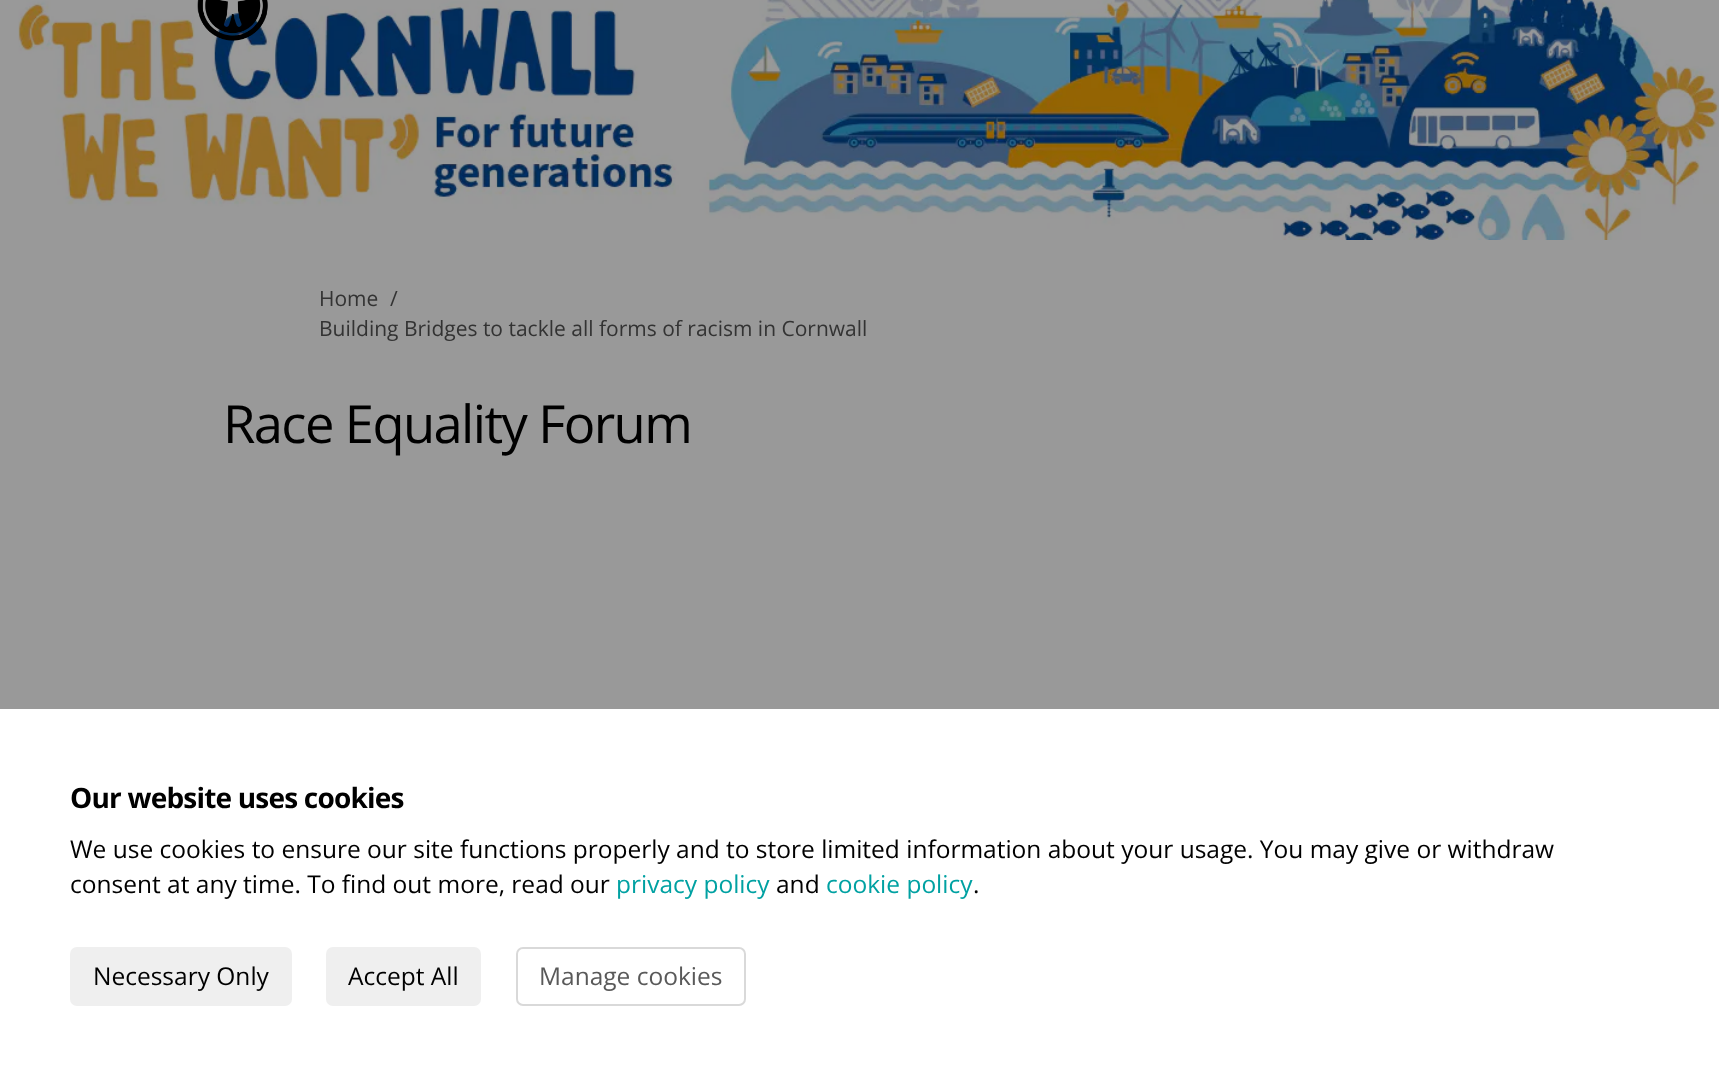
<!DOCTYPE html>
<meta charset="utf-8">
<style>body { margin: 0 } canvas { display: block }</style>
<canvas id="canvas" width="1719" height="1076"></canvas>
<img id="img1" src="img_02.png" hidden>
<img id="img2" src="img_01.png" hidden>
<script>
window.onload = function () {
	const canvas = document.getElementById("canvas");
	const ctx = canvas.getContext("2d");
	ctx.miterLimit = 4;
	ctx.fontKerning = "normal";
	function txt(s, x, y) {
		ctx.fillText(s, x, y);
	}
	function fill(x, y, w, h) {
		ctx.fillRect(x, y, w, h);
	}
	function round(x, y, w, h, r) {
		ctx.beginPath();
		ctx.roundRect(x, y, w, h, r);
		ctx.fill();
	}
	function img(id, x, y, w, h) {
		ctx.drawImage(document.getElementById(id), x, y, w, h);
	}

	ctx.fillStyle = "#999999";
	fill(0, 0, 1719, 1076);
	img("img1", 18, 0, 1701, 240);
	img("img2", 197, 0, 71, 41);
	ctx.fillStyle = "#FFFFFF";
	fill(0, 709, 1719, 367);
	ctx.fillStyle = "#EFEFEF";
	round(70, 947, 222, 59, 7);
	round(326, 947, 155, 59, 7);
	ctx.beginPath();
	ctx.roundRect(517, 948, 228, 57, 6);
	ctx.strokeStyle = "#D9D9D9";
	ctx.lineWidth = 2;
	ctx.stroke();
	ctx.font = "21px Open Sans";
	ctx.fillStyle = "#333333";
	txt("Home", 319, 306);
	txt("/", 390, 306);
	txt("Building Bridges to tackle all forms of racism in Cornwall", 319, 336);
	ctx.letterSpacing = "-1.6px";
	ctx.font = "52.5px Open Sans";
	ctx.fillStyle = "#000000";
	txt("Race Equality Forum", 223, 443);
	ctx.letterSpacing = "-0.8px";
	ctx.font = "bold 28px Open Sans";
	txt("Our website uses cookies", 70, 808);
	ctx.letterSpacing = "0px";
	ctx.font = "24.5px Open Sans";
	txt("We use cookies to ensure our site functions properly and to store limited information about your usage. You may give or withdraw", 70, 858);
	txt("consent at any time. To find out more, read our", 70, 893);
	ctx.fillStyle = "#00A1A2";
	txt("privacy policy", 616, 893);
	ctx.fillStyle = "#000000";
	txt("and", 776, 893);
	ctx.fillStyle = "#00A1A2";
	txt("cookie policy", 826, 893);
	ctx.fillStyle = "#000000";
	txt(".", 973, 893);
	txt("Necessary Only", 93, 985);
	txt("Accept All", 348, 985);
	ctx.fillStyle = "#595959";
	txt("Manage cookies", 539, 985);
};
</script>
